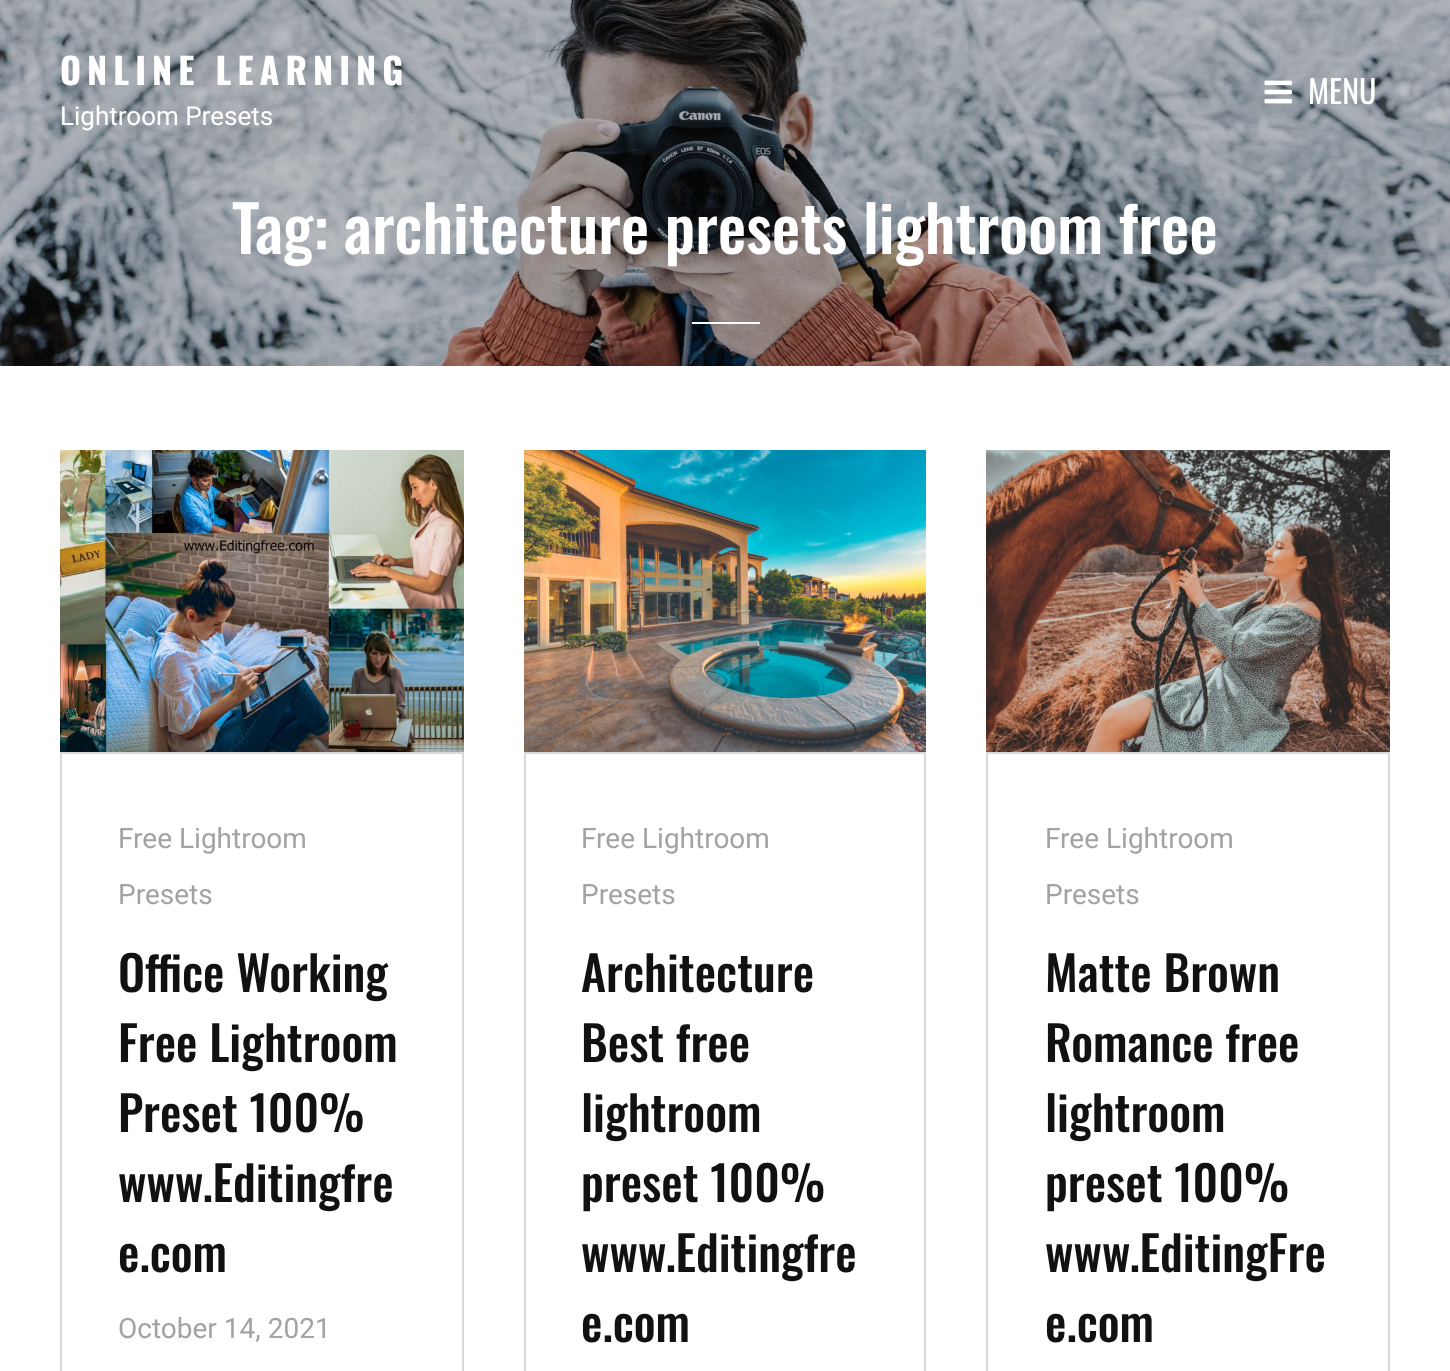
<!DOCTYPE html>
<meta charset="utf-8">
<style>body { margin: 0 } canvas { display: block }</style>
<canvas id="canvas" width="1450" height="1371"></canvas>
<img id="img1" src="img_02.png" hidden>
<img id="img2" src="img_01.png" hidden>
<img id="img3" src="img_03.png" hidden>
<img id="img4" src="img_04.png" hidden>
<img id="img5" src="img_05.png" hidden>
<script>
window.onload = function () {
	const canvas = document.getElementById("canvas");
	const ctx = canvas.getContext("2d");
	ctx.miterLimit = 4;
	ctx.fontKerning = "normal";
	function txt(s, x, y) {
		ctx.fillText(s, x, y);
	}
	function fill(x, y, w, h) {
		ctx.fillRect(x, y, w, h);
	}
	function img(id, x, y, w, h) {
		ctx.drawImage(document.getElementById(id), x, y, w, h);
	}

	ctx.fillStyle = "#FFFFFF";
	fill(0, 0, 1450, 1371);
	img("img1", 0, 0, 1450, 366);
	img("img2", 1264, 80, 28, 24);
	fill(692, 322, 68, 2);
	img("img3", 60, 450, 404, 302);
	ctx.strokeStyle = "#D9D9D9";
	ctx.lineWidth = 2;
	ctx.strokeRect(61, 753, 402, 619);
	img("img4", 524, 450, 402, 302);
	ctx.strokeRect(525, 753, 400, 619);
	img("img5", 986, 450, 404, 302);
	ctx.strokeRect(987, 753, 402, 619);
	ctx.letterSpacing = "6px";
	ctx.font = "bold 36px Oswald";
	txt("ONLINE LEARNING", 60, 85);
	ctx.letterSpacing = "0px";
	ctx.font = "26px Roboto";
	txt("Lightroom Presets", 60, 125);
	ctx.font = "32px Oswald";
	txt("MENU", 1308, 104);
	ctx.font = "500 64px Oswald";
	txt("Tag: architecture presets lightroom free", 232, 254);
	ctx.font = "28px Roboto";
	ctx.fillStyle = "#A3A3A3";
	txt("Free Lightroom", 118, 848);
	txt("Presets", 118, 904);
	ctx.font = "500 48px Oswald";
	ctx.fillStyle = "#111111";
	txt("Office Working", 118, 992);
	txt("Free Lightroom", 118, 1062);
	txt("Preset 100%", 118, 1132);
	txt("www.Editingfre", 118, 1202);
	txt("e.com", 118, 1272);
	ctx.font = "28px Roboto";
	ctx.fillStyle = "#A3A3A3";
	txt("October 14, 2021", 118, 1338);
	txt("Free Lightroom", 581, 848);
	txt("Presets", 581, 904);
	ctx.font = "500 48px Oswald";
	ctx.fillStyle = "#111111";
	txt("Architecture", 581, 992);
	txt("Best free", 581, 1062);
	txt("lightroom", 581, 1132);
	txt("preset 100%", 581, 1202);
	txt("www.Editingfre", 581, 1272);
	txt("e.com", 581, 1342);
	ctx.font = "28px Roboto";
	ctx.fillStyle = "#A3A3A3";
	txt("Free Lightroom", 1045, 848);
	txt("Presets", 1045, 904);
	ctx.font = "500 48px Oswald";
	ctx.fillStyle = "#111111";
	txt("Matte Brown", 1045, 992);
	txt("Romance free", 1045, 1062);
	txt("lightroom", 1045, 1132);
	txt("preset 100%", 1045, 1202);
	txt("www.EditingFre", 1045, 1272);
	txt("e.com", 1045, 1342);
};
</script>
